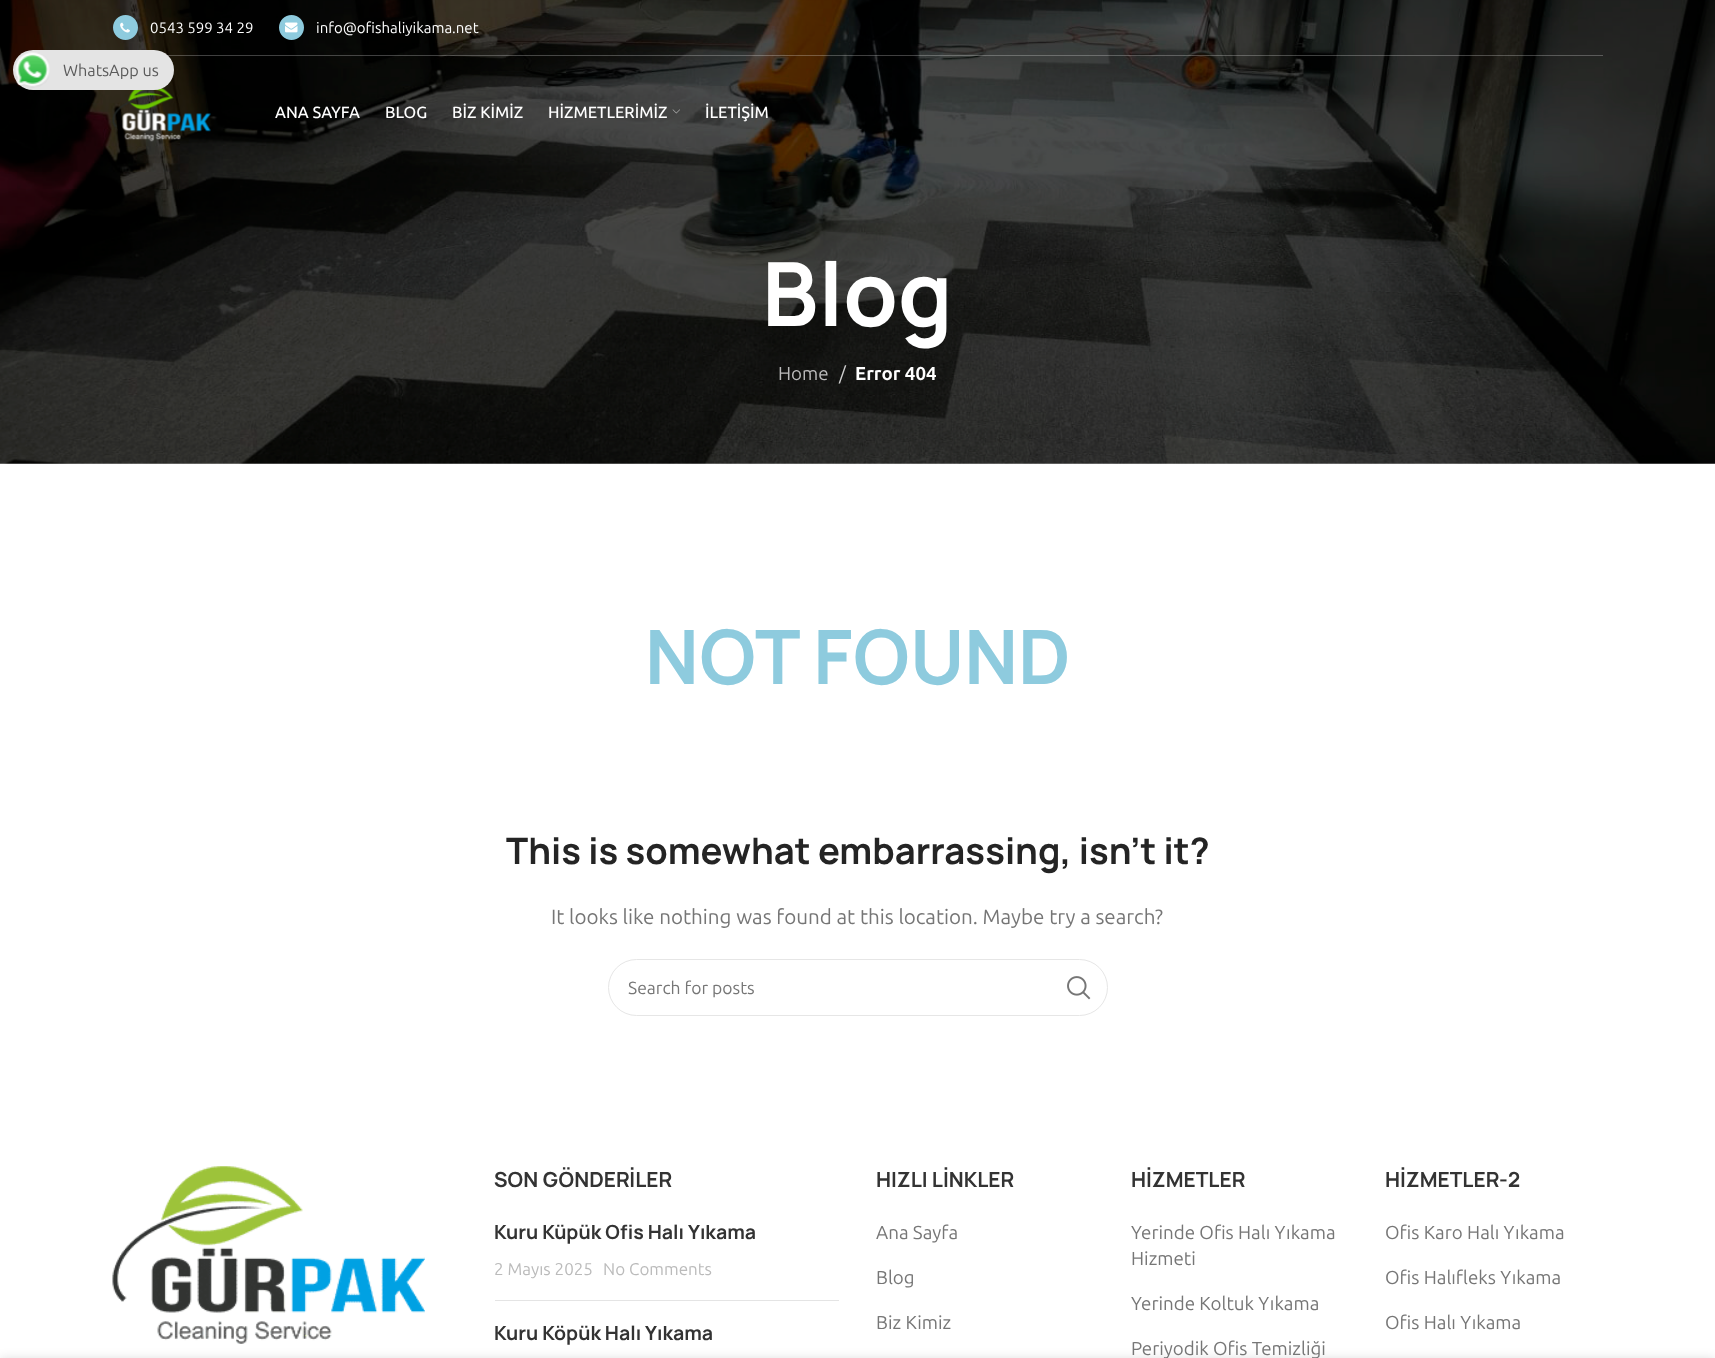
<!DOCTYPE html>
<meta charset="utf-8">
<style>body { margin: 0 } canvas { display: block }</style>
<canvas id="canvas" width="1715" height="1358"></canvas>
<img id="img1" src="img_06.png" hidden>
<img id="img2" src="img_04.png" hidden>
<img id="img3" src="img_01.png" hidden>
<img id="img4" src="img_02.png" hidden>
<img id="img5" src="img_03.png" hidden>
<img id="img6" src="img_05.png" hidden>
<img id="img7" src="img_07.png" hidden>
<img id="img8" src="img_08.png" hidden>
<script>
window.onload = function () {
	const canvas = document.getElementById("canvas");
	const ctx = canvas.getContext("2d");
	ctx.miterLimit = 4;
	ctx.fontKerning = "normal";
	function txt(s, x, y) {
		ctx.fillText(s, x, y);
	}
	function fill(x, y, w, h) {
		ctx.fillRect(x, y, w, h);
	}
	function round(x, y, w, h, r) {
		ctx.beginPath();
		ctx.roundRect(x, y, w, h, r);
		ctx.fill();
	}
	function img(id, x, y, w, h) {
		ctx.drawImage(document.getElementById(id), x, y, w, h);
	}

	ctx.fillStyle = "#FFFFFF";
	fill(0, 0, 1715, 1358);
	img("img1", 0, 0, 1715, 464);
	ctx.fillStyle = "rgba(255, 255, 255, 0.25)";
	fill(167, 55, 1436, 1);
	img("img2", 112, 87, 99, 55);
	ctx.fillStyle = "#E4E4E4";
	round(13, 50, 161, 40, 20);
	img("img3", 15, 52, 35, 36);
	img("img4", 113, 15, 25, 25);
	img("img5", 279, 15, 25, 25);
	img("img6", 672, 109, 8, 5);
	ctx.beginPath();
	ctx.roundRect(608.5, 959.5, 499, 56, 28);
	ctx.strokeStyle = "#E6E6E6";
	ctx.stroke();
	img("img7", 1067, 976, 24, 24);
	img("img8", 112, 1166, 313, 178);
	fill(495, 1300, 344, 1);
	ctx.fillStyle = "rgba(0, 0, 0, 0.14)";
	ctx.filter = "blur(5.5px)";
	ctx.beginPath();
	ctx.rect(0, 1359, 1715, 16);
	ctx.fill();
	ctx.filter = "none";
	ctx.font = "16.25px Ubuntu";
	ctx.fillStyle = "#5B5B5B";
	txt("WhatsApp us", 63, 76);
	ctx.font = "15px Ubuntu";
	ctx.fillStyle = "#FFFFFF";
	txt("0543 599 34 29", 150, 33);
	txt("info@ofishaliyikama.net", 316, 33);
	ctx.font = "500 16.25px Ubuntu";
	txt("ANA SAYFA", 275, 118);
	txt("BLOG", 385, 118);
	txt("BİZ KİMİZ", 452, 118);
	txt("HİZMETLERİMİZ", 548, 118);
	txt("İLETİŞİM", 705, 118);
	ctx.font = "bold 85px 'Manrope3'";
	txt("Blog", 762, 326);
	ctx.font = "18.75px Ubuntu";
	ctx.fillStyle = "#BBBBBB";
	txt("Home", 778, 380);
	ctx.fillStyle = "#D0D0D0";
	txt("/", 839, 380);
	ctx.font = "bold 18.75px Ubuntu";
	ctx.fillStyle = "#FFFFFF";
	txt("Error 404", 855, 380);
	ctx.font = "bold 72px 'Manrope3'";
	ctx.fillStyle = "#8ECBDE";
	txt("NOT FOUND", 645, 684);
	ctx.font = "bold 35px 'Manrope3'";
	ctx.fillStyle = "#242424";
	txt("This is somewhat embarrassing, isn’t it?", 506, 864);
	ctx.font = "20.6px Ubuntu";
	ctx.fillStyle = "#767676";
	txt("It looks like nothing was found at this location. Maybe try a search?", 551, 924);
	ctx.font = "17.5px Ubuntu";
	txt("Search for posts", 628, 994);
	ctx.font = "bold 20px 'Manrope3'";
	ctx.fillStyle = "#333333";
	txt("SON GÖNDERİLER", 494, 1187);
	ctx.font = "bold 18.75px 'Manrope3'";
	txt("Kuru Küpük Ofis Halı Yıkama", 494, 1239);
	ctx.font = "17px Ubuntu";
	ctx.fillStyle = "#BBBBBB";
	txt("2 Mayıs 2025", 494, 1275);
	txt("No Comments", 603, 1275);
	ctx.font = "bold 18.75px 'Manrope3'";
	ctx.fillStyle = "#333333";
	txt("Kuru Köpük Halı Yıkama", 494, 1340);
	ctx.font = "bold 20px 'Manrope3'";
	txt("HIZLI LİNKLER", 876, 1187);
	ctx.font = "18.75px Ubuntu";
	ctx.fillStyle = "#767676";
	txt("Ana Sayfa", 876, 1239);
	txt("Blog", 876, 1284);
	txt("Biz Kimiz", 876, 1329);
	ctx.font = "bold 20px 'Manrope3'";
	ctx.fillStyle = "#333333";
	txt("HİZMETLER", 1131, 1187);
	ctx.font = "18.75px Ubuntu";
	ctx.fillStyle = "#767676";
	txt("Yerinde Ofis Halı Yıkama", 1131, 1239);
	txt("Hizmeti", 1131, 1265);
	txt("Yerinde Koltuk Yıkama", 1131, 1310);
	txt("Periyodik Ofis Temizliği", 1131, 1355);
	ctx.font = "bold 20px 'Manrope3'";
	ctx.fillStyle = "#333333";
	txt("HİZMETLER-2", 1385, 1187);
	ctx.font = "18.75px Ubuntu";
	ctx.fillStyle = "#767676";
	txt("Ofis Karo Halı Yıkama", 1385, 1239);
	txt("Ofis Halıfleks Yıkama", 1385, 1284);
	txt("Ofis Halı Yıkama", 1385, 1329);
};
</script>
